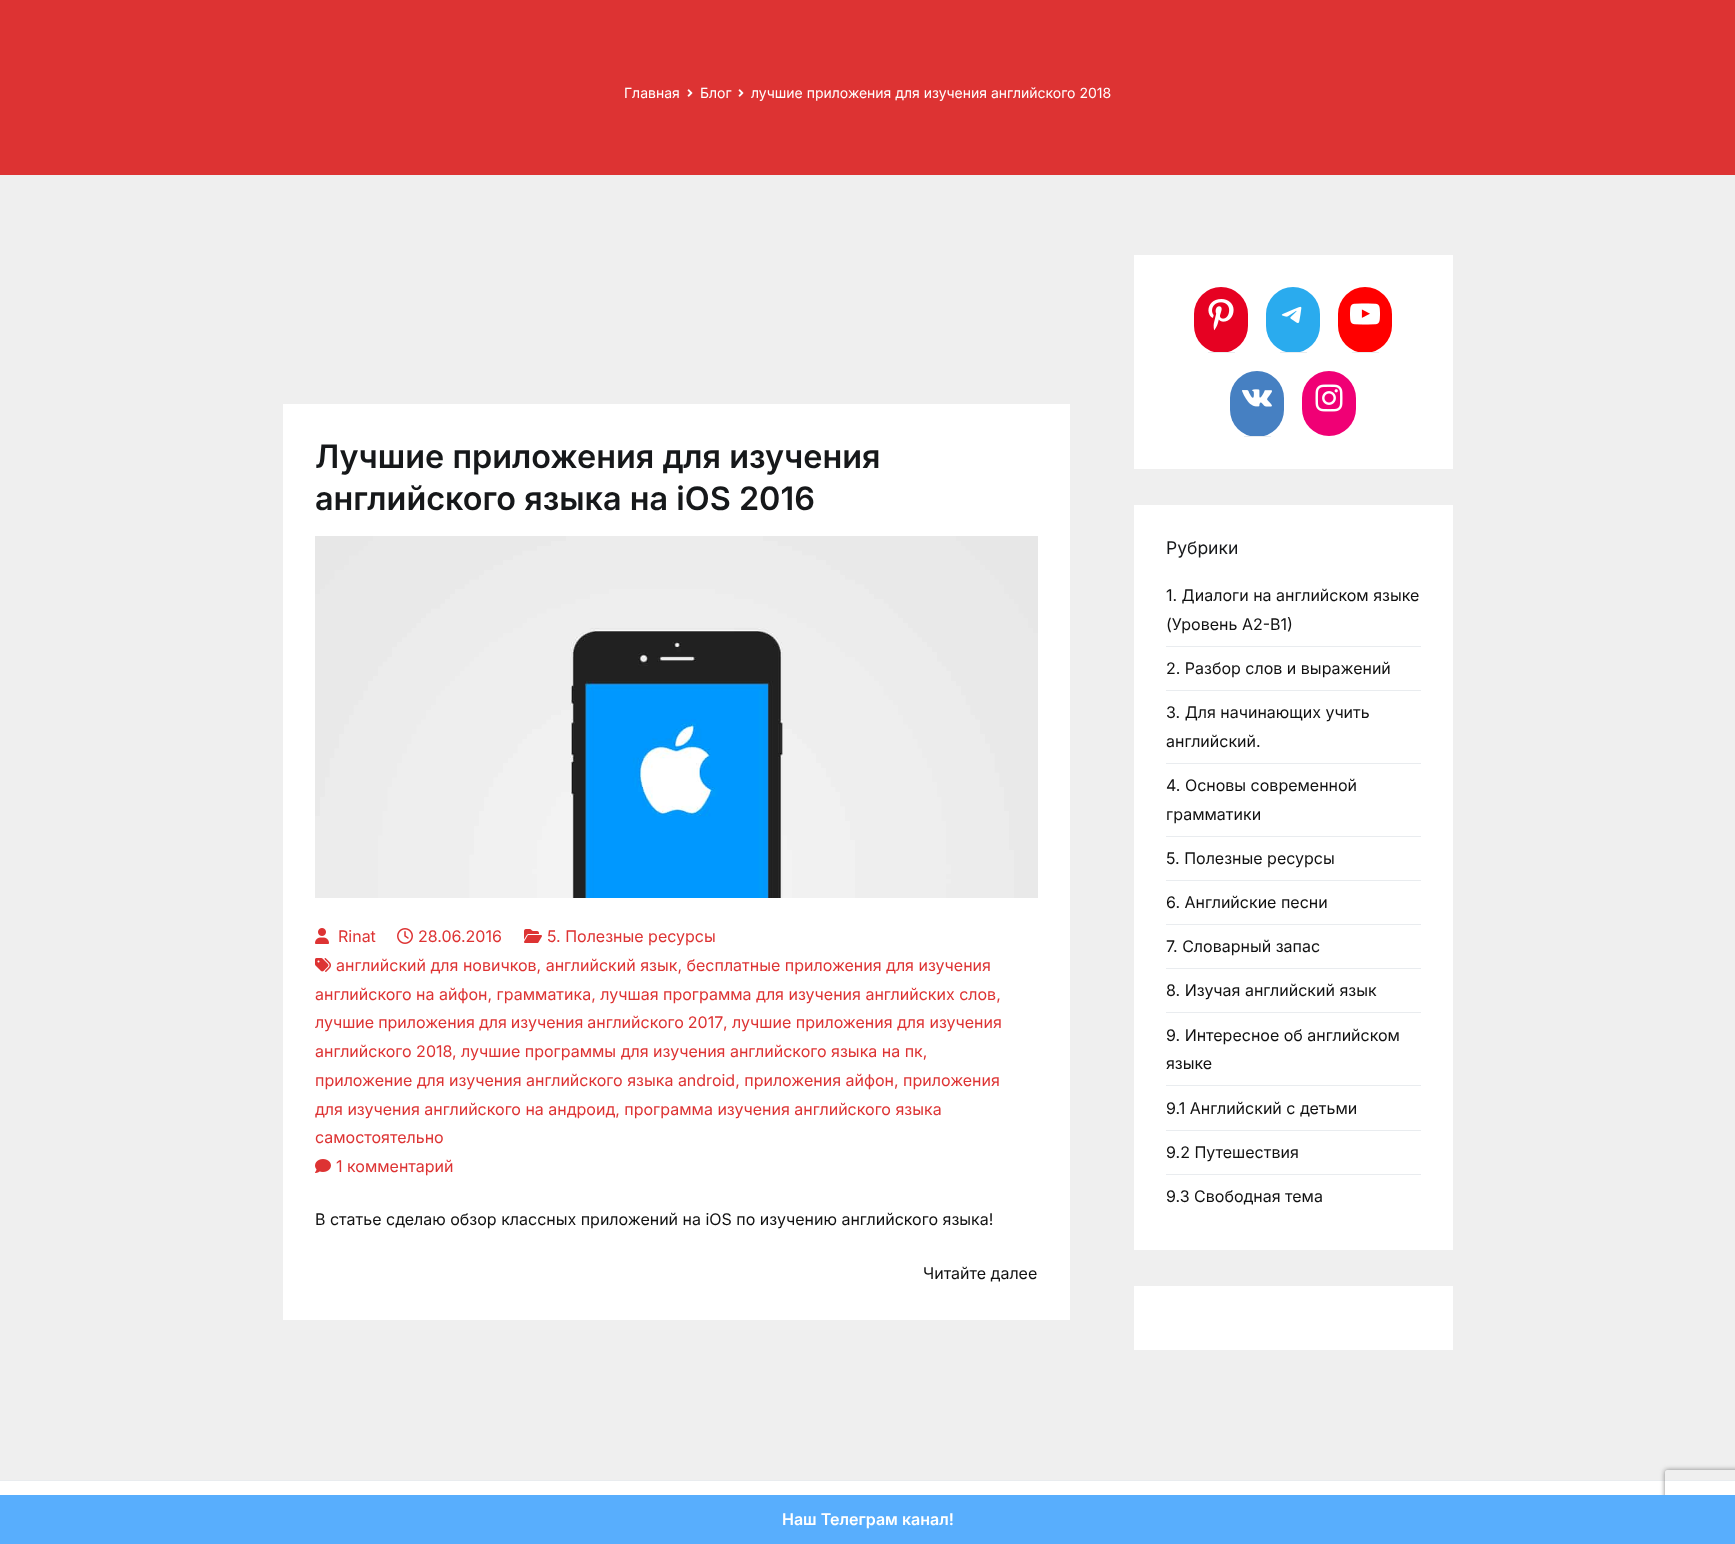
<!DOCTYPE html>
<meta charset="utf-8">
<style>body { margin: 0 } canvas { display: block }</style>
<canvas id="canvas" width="1735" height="1544"></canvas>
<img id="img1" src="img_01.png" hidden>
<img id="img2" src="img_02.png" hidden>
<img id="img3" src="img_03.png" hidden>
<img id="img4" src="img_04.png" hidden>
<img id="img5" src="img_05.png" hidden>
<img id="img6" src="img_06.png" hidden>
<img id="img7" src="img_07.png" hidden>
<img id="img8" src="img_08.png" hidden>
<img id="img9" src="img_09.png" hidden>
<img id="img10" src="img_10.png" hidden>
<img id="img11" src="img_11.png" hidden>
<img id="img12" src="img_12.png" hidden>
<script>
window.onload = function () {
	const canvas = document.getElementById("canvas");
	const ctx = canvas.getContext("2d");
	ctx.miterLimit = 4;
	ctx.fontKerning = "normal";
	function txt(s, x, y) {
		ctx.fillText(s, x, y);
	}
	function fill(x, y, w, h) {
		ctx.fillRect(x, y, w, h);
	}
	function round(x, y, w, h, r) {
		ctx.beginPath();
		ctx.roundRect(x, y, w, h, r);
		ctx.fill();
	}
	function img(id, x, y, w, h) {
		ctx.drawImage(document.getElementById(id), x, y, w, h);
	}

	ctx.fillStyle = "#EFEFEF";
	fill(0, 0, 1735, 1544);
	ctx.fillStyle = "#DD3333";
	fill(0, 0, 1735, 175);
	img("img1", 687, 89, 6, 8);
	img("img1", 738, 89, 6, 8);
	ctx.fillStyle = "#FFFFFF";
	fill(283, 404, 787, 916);
	img("img2", 315, 536, 723, 362);
	img("img3", 315, 928, 14, 16);
	img("img4", 397, 928, 16, 16);
	img("img5", 524, 929, 18, 14);
	img("img6", 315, 958, 16, 14);
	img("img7", 315, 1159, 16, 14);
	fill(1134, 255, 319, 214);
	ctx.fillStyle = "#E60122";
	round(1194, 287, 54, 66, 27);
	ctx.fillStyle = "#E9ECEF";
	fill(1208, 352, 27, 1);
	img("img8", 1208, 299, 26, 32);
	ctx.fillStyle = "#2AABEE";
	round(1266, 287, 54, 66, 27);
	ctx.fillStyle = "#E9ECEF";
	fill(1280, 352, 27, 1);
	img("img9", 1281, 306, 21, 17);
	ctx.fillStyle = "#FF0000";
	round(1338, 287, 54, 66, 27);
	ctx.fillStyle = "#E9ECEF";
	fill(1352, 352, 27, 1);
	img("img10", 1350, 303, 30, 22);
	ctx.fillStyle = "#4680C2";
	round(1230, 371, 54, 66, 27);
	ctx.fillStyle = "#E9ECEF";
	fill(1244, 436, 27, 1);
	img("img11", 1242, 389, 30, 18);
	ctx.fillStyle = "#F00075";
	round(1302, 371, 54, 65, 27);
	img("img12", 1315, 384, 28, 28);
	ctx.fillStyle = "#FFFFFF";
	fill(1134, 505, 319, 745);
	ctx.fillStyle = "#E9ECEF";
	fill(1166, 646, 255, 1);
	fill(1166, 690, 255, 1);
	fill(1166, 763, 255, 1);
	fill(1166, 836, 255, 1);
	fill(1166, 880, 255, 1);
	fill(1166, 924, 255, 1);
	fill(1166, 968, 255, 1);
	fill(1166, 1012, 255, 1);
	fill(1166, 1085, 255, 1);
	fill(1166, 1130, 255, 1);
	fill(1166, 1174, 255, 1);
	ctx.fillStyle = "#FFFFFF";
	fill(1134, 1286, 319, 64);
	fill(0, 1481, 1735, 14);
	ctx.fillStyle = "#E9ECEF";
	fill(0, 1480, 1735, 1);
	ctx.save();
	ctx.beginPath();
	ctx.moveTo(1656, 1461);
	ctx.lineTo(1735, 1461);
	ctx.lineTo(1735, 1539);
	ctx.lineTo(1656, 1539);
	ctx.closePath();
	ctx.moveTo(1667, 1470);
	ctx.lineTo(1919, 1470);
	ctx.bezierCurveTo(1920, 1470, 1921, 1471, 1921, 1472);
	ctx.lineTo(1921, 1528);
	ctx.bezierCurveTo(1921, 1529, 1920, 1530, 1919, 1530);
	ctx.lineTo(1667, 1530);
	ctx.bezierCurveTo(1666, 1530, 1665, 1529, 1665, 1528);
	ctx.lineTo(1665, 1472);
	ctx.bezierCurveTo(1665, 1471, 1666, 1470, 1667, 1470);
	ctx.closePath();
	ctx.clip("evenodd");
	ctx.fillStyle = "#808080";
	ctx.filter = "blur(2.5px)";
	ctx.beginPath();
	ctx.roundRect(1665, 1470, 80, 60, 2);
	ctx.fill();
	ctx.filter = "none";
	ctx.restore();
	ctx.fillStyle = "#58AEFD";
	fill(0, 1495, 1735, 49);
	ctx.font = "14px Inter";
	ctx.fillStyle = "#FFFFFF";
	txt("Главная", 624, 98);
	txt("Блог", 700, 98);
	txt("лучшие приложения для изучения английского 2018", 751, 98);
	ctx.font = "600 32.4px Inter";
	ctx.fillStyle = "#16181A";
	txt("Лучшие приложения для изучения", 315, 468);
	txt("английского языка на iOS 2016", 315, 510);
	ctx.font = "16px Inter";
	ctx.fillStyle = "#DD3333";
	txt("Rinat", 338, 942);
	txt("28.06.2016", 418, 942);
	txt("5. Полезные ресурсы", 547, 942);
	txt("английский для новичков, английский язык, бесплатные приложения для изучения", 336, 971);
	txt("английского на айфон, грамматика, лучшая программа для изучения английских слов,", 315, 1000);
	ctx.wordSpacing = "-0.5px";
	txt("лучшие приложения для изучения английского 2017", 315, 1028);
	ctx.wordSpacing = "0px";
	txt(", лучшие приложения для изучения", 723, 1028);
	txt("английского 2018", 315, 1057);
	txt(", лучшие программы для изучения английского языка на пк,", 452, 1057);
	txt("приложение для изучения английского языка android, приложения айфон, приложения", 315, 1086);
	txt("для изучения английского на андроид, программа изучения английского языка", 315, 1115);
	txt("самостоятельно", 315, 1143);
	txt("1 комментарий", 336, 1172);
	ctx.fillStyle = "#111111";
	txt("В статье сделаю обзор классных приложений на iOS по изучению английского языка!", 315, 1225);
	txt("Читайте далее", 923, 1279);
	ctx.font = "17.5px Inter";
	ctx.fillStyle = "#16181A";
	txt("Рубрики", 1166, 554);
	ctx.font = "16px Inter";
	ctx.fillStyle = "#111111";
	txt("1. Диалоги на английском языке", 1166, 601);
	txt("(Уровень А2-В1)", 1166, 630);
	txt("2. Разбор слов и выражений", 1166, 674);
	txt("3. Для начинающих учить", 1166, 718);
	txt("английский.", 1166, 747);
	txt("4. Основы современной", 1166, 791);
	txt("грамматики", 1166, 820);
	txt("5. Полезные ресурсы", 1166, 864);
	txt("6. Английские песни", 1166, 908);
	txt("7. Словарный запас", 1166, 952);
	txt("8. Изучая английский язык", 1166, 996);
	txt("9. Интересное об английском", 1166, 1041);
	txt("языке", 1166, 1069);
	txt("9.1 Английский с детьми", 1166, 1114);
	txt("9.2 Путешествия", 1166, 1158);
	txt("9.3 Свободная тема", 1166, 1202);
	ctx.font = "600 16px Inter";
	ctx.fillStyle = "#FFFFFF";
	txt("Наш Телеграм канал!", 782, 1525);
};
</script>
